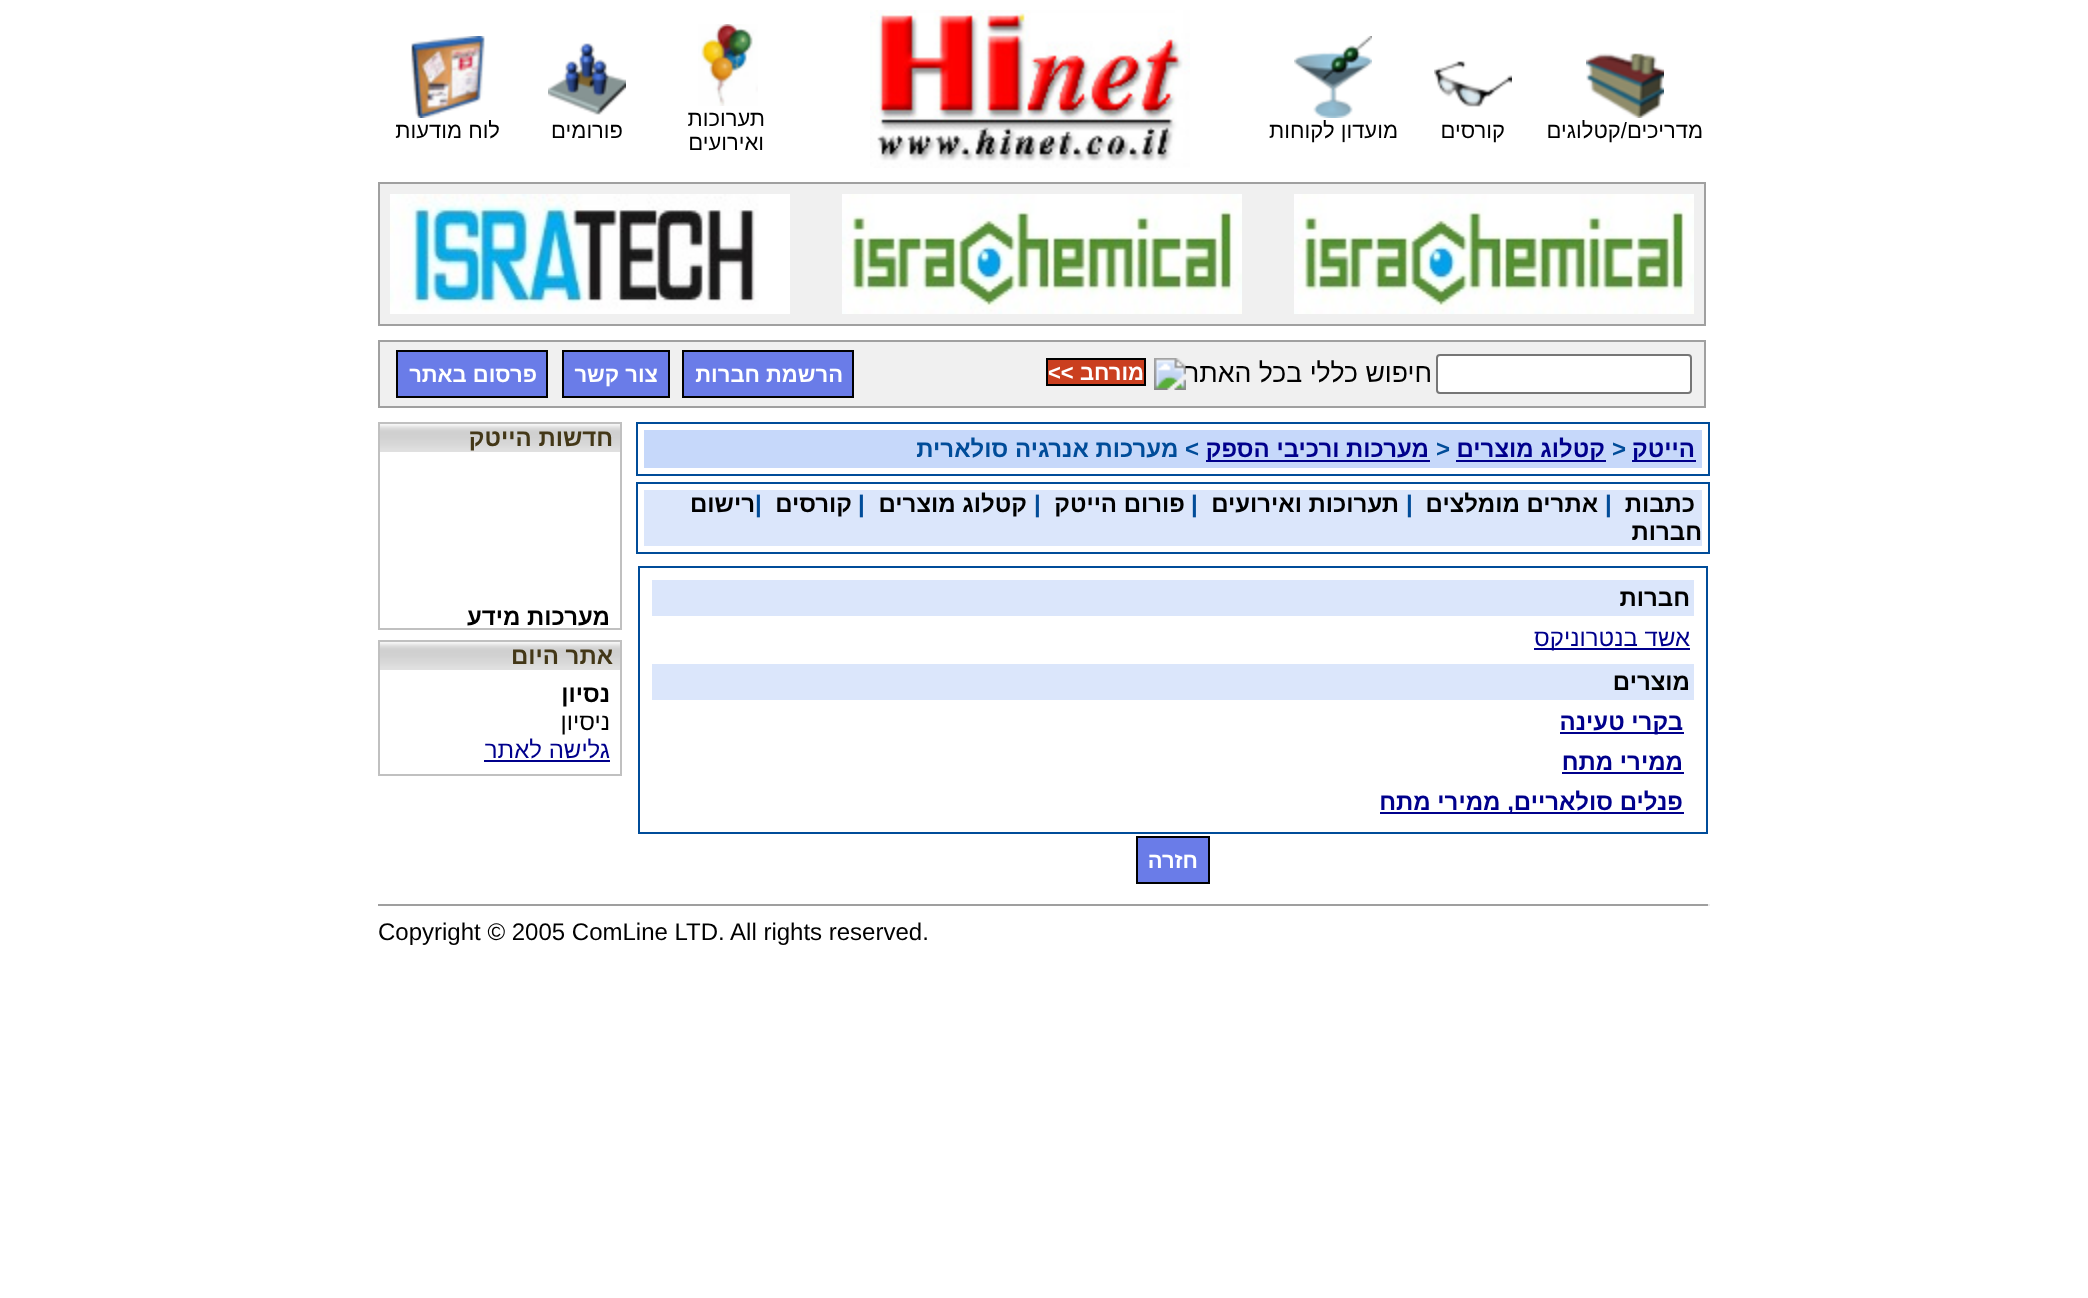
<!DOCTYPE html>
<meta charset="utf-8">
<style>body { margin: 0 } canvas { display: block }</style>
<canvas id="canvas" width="2088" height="1298"></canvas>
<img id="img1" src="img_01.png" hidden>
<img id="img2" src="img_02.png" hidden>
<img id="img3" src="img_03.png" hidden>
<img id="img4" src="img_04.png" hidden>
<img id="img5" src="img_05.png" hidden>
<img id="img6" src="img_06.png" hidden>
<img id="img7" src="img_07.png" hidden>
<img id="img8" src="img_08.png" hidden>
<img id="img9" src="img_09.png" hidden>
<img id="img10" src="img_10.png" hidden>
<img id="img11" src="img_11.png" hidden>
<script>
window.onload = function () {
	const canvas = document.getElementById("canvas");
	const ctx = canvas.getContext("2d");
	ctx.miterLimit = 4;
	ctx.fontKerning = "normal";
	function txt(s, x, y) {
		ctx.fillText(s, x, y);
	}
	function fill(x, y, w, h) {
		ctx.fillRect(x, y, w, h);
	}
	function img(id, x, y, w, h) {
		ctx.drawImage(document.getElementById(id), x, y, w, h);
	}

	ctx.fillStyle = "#FFFFFF";
	fill(0, 0, 2088, 1298);
	img("img1", 1586, 53, 78, 65);
	img("img2", 1434, 61, 78, 46);
	img("img3", 1294, 36, 78, 82);
	img("img4", 870, 10, 320, 158);
	img("img5", 698, 24, 60, 82);
	img("img6", 548, 43, 78, 72);
	img("img7", 411, 36, 74, 82);
	ctx.fillStyle = "#F0F0F0";
	ctx.beginPath();
	ctx.rect(379, 183, 1326, 142);
	ctx.fill();
	ctx.strokeStyle = "#A0A0A0";
	ctx.lineWidth = 2;
	ctx.stroke();
	img("img8", 1294, 194, 400, 120);
	img("img8", 842, 194, 400, 120);
	img("img9", 390, 194, 400, 120);
	ctx.beginPath();
	ctx.rect(379, 341, 1326, 66);
	ctx.fill();
	ctx.stroke();
	ctx.fillStyle = "#FFFFFF";
	ctx.beginPath();
	ctx.roundRect(1437, 355, 254, 38, 3);
	ctx.fill();
	ctx.strokeStyle = "#767676";
	ctx.stroke();
	img("img10", 1154, 358, 276, 32);
	ctx.fillStyle = "#000000";
	fill(1046, 358, 100, 2);
	fill(1144, 358, 2, 28);
	fill(1080, 384, 66, 2);
	ctx.fillStyle = "#CA3F1F";
	fill(1048, 360, 96, 24);
	ctx.fillStyle = "#000000";
	fill(1046, 384, 34, 2);
	fill(1046, 358, 2, 28);
	ctx.fillStyle = "#6A7CE8";
	ctx.beginPath();
	ctx.rect(683, 351, 170, 46);
	ctx.fill();
	ctx.strokeStyle = "#000000";
	ctx.stroke();
	ctx.beginPath();
	ctx.rect(563, 351, 106, 46);
	ctx.fill();
	ctx.stroke();
	ctx.beginPath();
	ctx.rect(397, 351, 150, 46);
	ctx.fill();
	ctx.stroke();
	ctx.strokeStyle = "#004C99";
	ctx.strokeRect(637, 423, 1072, 52);
	ctx.fillStyle = "#C6D8FA";
	fill(644, 430, 1058, 38);
	ctx.fillStyle = "#00008C";
	fill(1632, 460, 64, 2);
	fill(1456, 460, 150, 2);
	fill(1206, 460, 224, 2);
	ctx.strokeRect(637, 483, 1072, 70);
	ctx.fillStyle = "#DBE6FB";
	fill(644, 490, 1058, 56);
	ctx.strokeRect(639, 567, 1068, 266);
	fill(652, 580, 1042, 36);
	ctx.fillStyle = "#00008C";
	fill(1534, 648, 156, 2);
	ctx.fillStyle = "#DBE6FB";
	fill(652, 664, 1042, 36);
	ctx.fillStyle = "#00008C";
	fill(1560, 732, 124, 2);
	fill(1562, 772, 122, 2);
	fill(1380, 812, 304, 2);
	ctx.fillStyle = "#6A7CE8";
	ctx.beginPath();
	ctx.rect(1137, 837, 72, 46);
	ctx.fill();
	ctx.strokeStyle = "#000000";
	ctx.stroke();
	ctx.strokeStyle = "#C0C0C0";
	ctx.strokeRect(379, 423, 242, 206);
	img("img11", 380, 424, 240, 28);
	ctx.strokeRect(379, 641, 242, 134);
	img("img11", 380, 642, 240, 28);
	ctx.fillStyle = "#00008C";
	fill(484, 760, 126, 2);
	ctx.fillStyle = "#9F9F9F";
	fill(378, 904, 1332, 2);
	ctx.fillStyle = "#EEEEEE";
	fill(1708, 904, 2, 2);
	ctx.direction = "rtl";
	ctx.font = "22px Liberation Sans";
	ctx.fillStyle = "#000000";
	txt("מדריכים/קטלוגים", 1703, 138);
	txt("קורסים", 1505, 138);
	txt("מועדון לקוחות", 1398, 138);
	txt("תערוכות", 765, 126);
	txt("ואירועים", 764, 150);
	txt("פורומים", 623, 138);
	txt("לוח מודעות", 500, 138);
	ctx.font = "bold 22px Liberation Sans";
	ctx.fillStyle = "#FFFFFF";
	txt("מורחב", 1144, 380);
	ctx.direction = "ltr";
	txt("<<", 1048, 380);
	ctx.direction = "rtl";
	txt("הרשמת חברות", 843, 382);
	txt("צור קשר", 658, 382);
	txt("פרסום באתר", 537, 382);
	ctx.font = "bold 24px Liberation Sans";
	ctx.fillStyle = "#00008C";
	txt("הייטק", 1695, 457);
	ctx.direction = "ltr";
	ctx.fillStyle = "#004C99";
	txt(">", 1612, 457);
	ctx.direction = "rtl";
	ctx.fillStyle = "#00008C";
	txt("קטלוג מוצרים", 1605, 457);
	ctx.direction = "ltr";
	ctx.fillStyle = "#004C99";
	txt(">", 1436, 457);
	ctx.direction = "rtl";
	ctx.fillStyle = "#00008C";
	txt("מערכות ורכיבי הספק", 1429, 457);
	ctx.fillStyle = "#004C99";
	txt("> מערכות אנרגיה סולארית", 1199, 457);
	ctx.fillStyle = "#000000";
	txt("כתבות", 1695, 512);
	ctx.direction = "ltr";
	ctx.fillStyle = "#004C99";
	txt("|", 1605, 512);
	ctx.direction = "rtl";
	ctx.fillStyle = "#000000";
	txt("אתרים מומלצים", 1598, 512);
	ctx.direction = "ltr";
	ctx.fillStyle = "#004C99";
	txt("|", 1406, 512);
	ctx.direction = "rtl";
	ctx.fillStyle = "#000000";
	txt("תערוכות ואירועים", 1399, 512);
	ctx.direction = "ltr";
	ctx.fillStyle = "#004C99";
	txt("|", 1191, 512);
	ctx.direction = "rtl";
	ctx.fillStyle = "#000000";
	txt("פורום הייטק", 1185, 512);
	ctx.direction = "ltr";
	ctx.fillStyle = "#004C99";
	txt("|", 1034, 512);
	ctx.direction = "rtl";
	ctx.fillStyle = "#000000";
	txt("קטלוג מוצרים", 1027, 512);
	ctx.direction = "ltr";
	ctx.fillStyle = "#004C99";
	txt("|", 858, 512);
	ctx.direction = "rtl";
	ctx.fillStyle = "#000000";
	txt("קורסים", 852, 512);
	ctx.direction = "ltr";
	ctx.fillStyle = "#004C99";
	txt("|", 755, 512);
	ctx.direction = "rtl";
	ctx.fillStyle = "#000000";
	txt("רישום", 755, 512);
	txt("חברות", 1702, 540);
	txt("חברות", 1690, 606);
	ctx.font = "24px Liberation Sans";
	ctx.fillStyle = "#00008C";
	txt("אשד בנטרוניקס", 1690, 646);
	ctx.font = "bold 24px Liberation Sans";
	ctx.fillStyle = "#000000";
	txt("מוצרים", 1690, 690);
	ctx.fillStyle = "#00008C";
	txt("בקרי טעינה", 1683, 730);
	txt("ממירי מתח", 1683, 770);
	txt("פנלים סולאריים, ממירי מתח", 1683, 810);
	ctx.font = "bold 22px Liberation Sans";
	ctx.fillStyle = "#FFFFFF";
	txt("חזרה", 1198, 868);
	ctx.font = "bold 24px Liberation Sans";
	ctx.fillStyle = "#433717";
	txt("חדשות הייטק", 613, 446);
	ctx.fillStyle = "#000000";
	txt("מערכות מידע", 610, 625);
	ctx.fillStyle = "#433717";
	txt("אתר היום", 613, 664);
	ctx.fillStyle = "#000000";
	txt("נסיון", 610, 702);
	ctx.font = "24px Liberation Sans";
	txt("ניסיון", 610, 730);
	ctx.fillStyle = "#00008C";
	txt("גלישה לאתר", 610, 758);
	ctx.direction = "ltr";
	ctx.fillStyle = "#000000";
	txt("Copyright © 2005 ComLine LTD. All rights reserved.", 378, 940);
};
</script>
